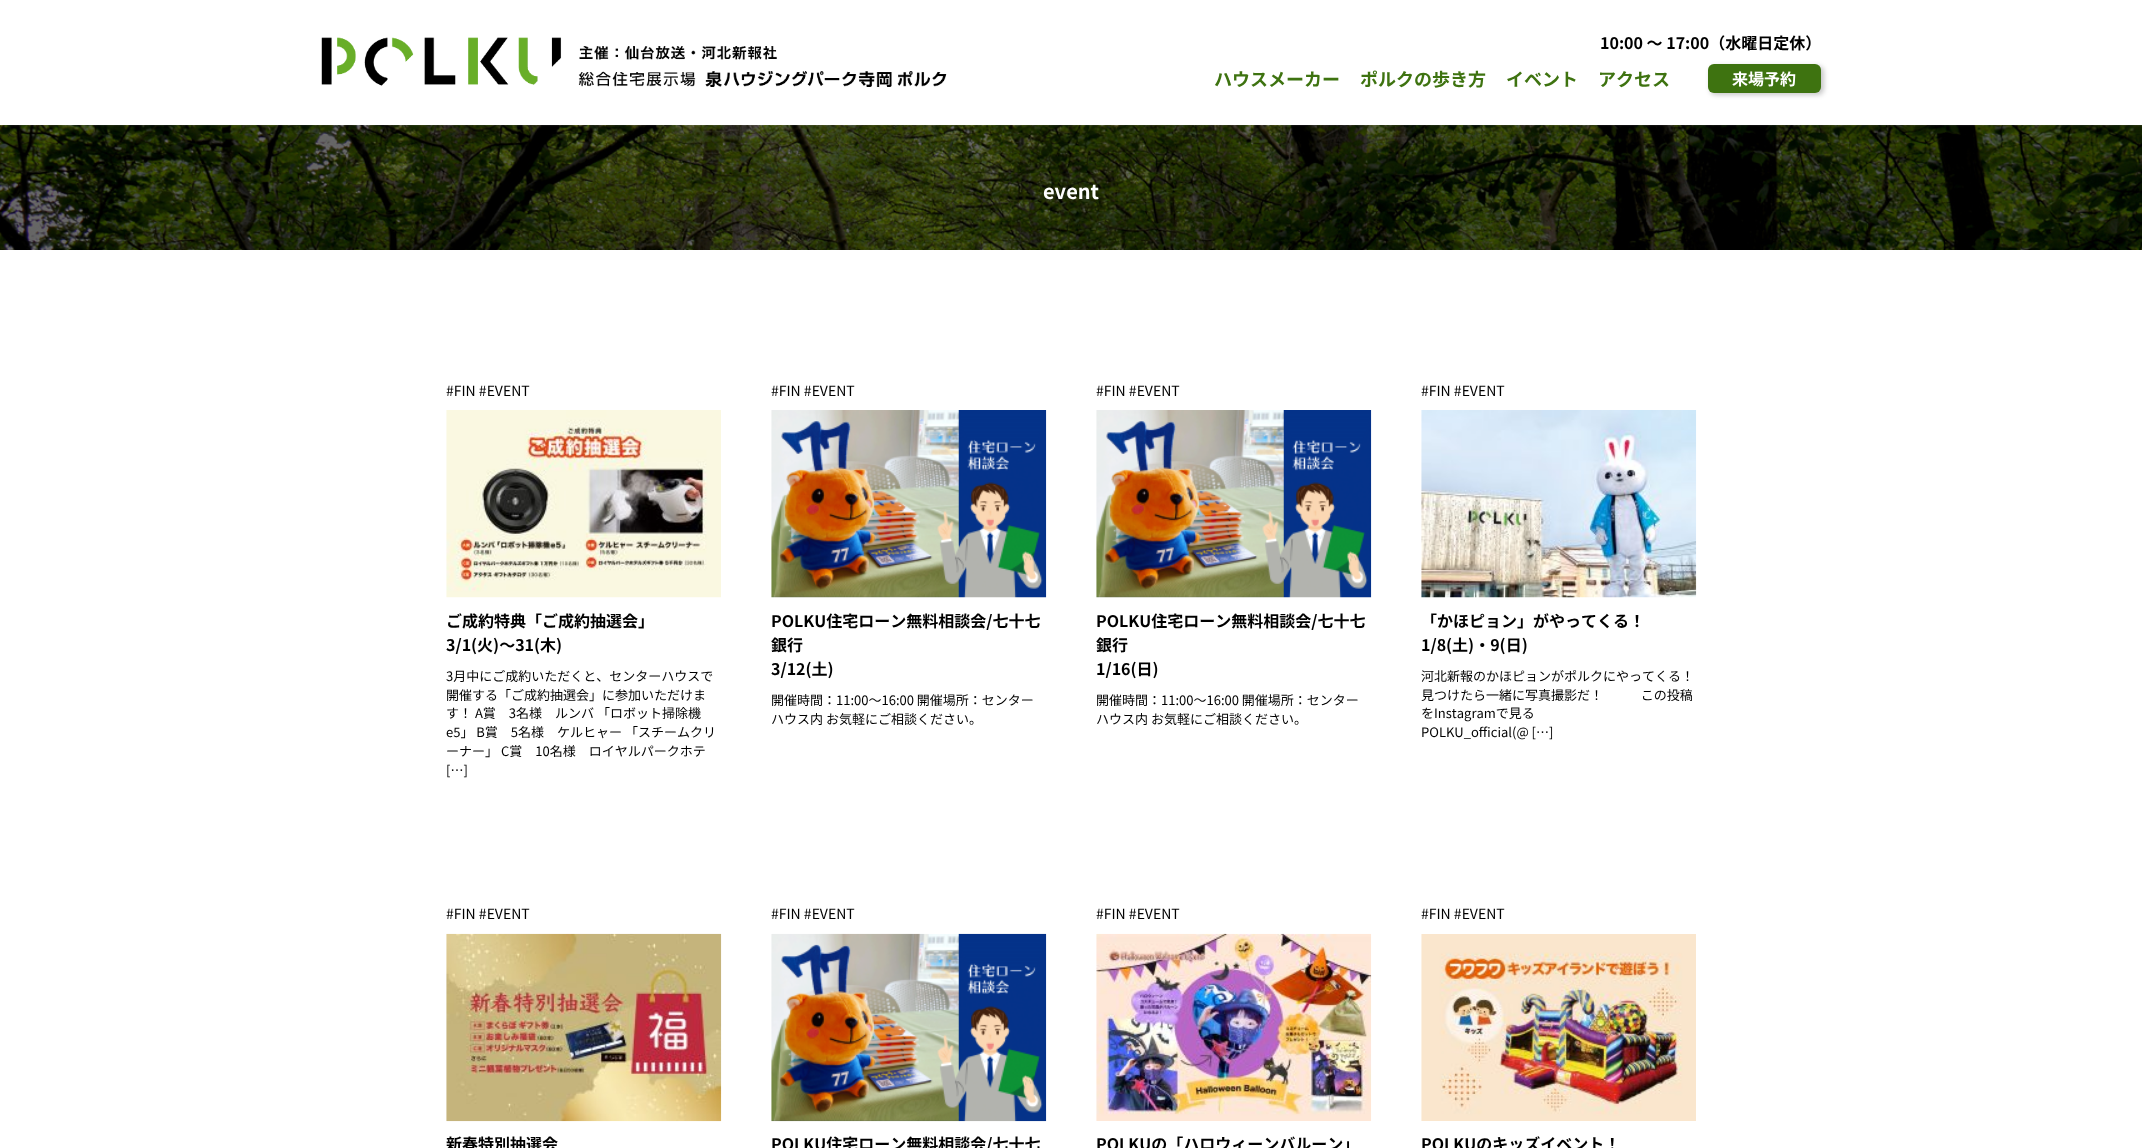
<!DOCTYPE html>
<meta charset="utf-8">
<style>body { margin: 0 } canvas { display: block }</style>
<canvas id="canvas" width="2142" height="1148"></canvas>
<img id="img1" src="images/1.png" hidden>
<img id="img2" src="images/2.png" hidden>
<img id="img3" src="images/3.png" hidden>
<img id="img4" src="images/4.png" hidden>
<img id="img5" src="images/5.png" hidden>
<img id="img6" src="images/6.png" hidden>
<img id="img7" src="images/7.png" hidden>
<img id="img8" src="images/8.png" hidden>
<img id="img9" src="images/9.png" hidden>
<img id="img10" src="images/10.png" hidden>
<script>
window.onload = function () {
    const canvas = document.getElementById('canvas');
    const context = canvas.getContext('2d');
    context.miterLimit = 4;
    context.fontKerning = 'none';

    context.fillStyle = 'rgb(255, 255, 255)';
    context.fillRect(0, 0, 2142, 1148);
    context.drawImage(document.getElementById('img1'), 321, 37, 626, 50);
    context.fillStyle = 'rgba(0, 0, 0, 0.22)';
    context.filter = 'blur(2.5px)';
    context.beginPath();
    context.roundRect(1710, 66, 114, 29, 6);
    context.fill();
    context.filter = 'none';
    context.fillStyle = 'rgb(62, 115, 16)';
    context.beginPath();
    context.roundRect(1708, 64, 113, 29, 6);
    context.fill();
    context.drawImage(document.getElementById('img2'), 0, 125, 2142, 125);
    context.drawImage(document.getElementById('img3'), 446, 410, 275, 188);
    context.drawImage(document.getElementById('img4'), 771, 410, 276, 188);
    context.drawImage(document.getElementById('img5'), 1096, 410, 276, 188);
    context.drawImage(document.getElementById('img6'), 1421, 410, 276, 188);
    context.drawImage(document.getElementById('img7'), 446, 933, 276, 189);
    context.drawImage(document.getElementById('img8'), 771, 933, 276, 189);
    context.drawImage(document.getElementById('img9'), 1096, 933, 276, 188);
    context.drawImage(document.getElementById('img10'), 1421, 934, 275, 187);
    context.font = 'bold 16px Noto Sans JP';
    context.fillStyle = 'rgb(0, 0, 0)';
    context.fillText('10:00 ～ 17:00（水曜日定休）', 1600, 49);
    context.font = 'bold 18px Noto Sans JP';
    context.fillStyle = 'rgb(62, 115, 16)';
    context.fillText('ハウスメーカー', 1214, 86);
    context.fillText('ポルクの歩き方', 1360, 86);
    context.fillText('イベント', 1506, 86);
    context.fillText('アクセス', 1598, 86);
    context.font = 'bold 16px Noto Sans JP';
    context.fillStyle = 'rgb(255, 255, 255)';
    context.fillText('来場予約', 1732, 85);
    context.font = 'bold 20px Noto Sans JP';
    context.fillText('event', 1043, 199);
    context.font = '14px Noto Sans JP';
    context.fillStyle = 'rgb(0, 0, 0)';
    context.fillText('#FIN #EVENT', 446, 396);
    context.font = 'bold 16px Noto Sans JP';
    context.fillText('ご成約特典「ご成約抽選会」', 446, 627);
    context.fillText('3/1(火)〜31(木)', 446, 651);
    context.font = '13px Noto Sans JP';
    context.fillText('3月中にご成約いただくと、センターハウスで', 446, 681);
    context.fillText('開催する「ご成約抽選会」に参加いただけま', 446, 700);
    context.fillText('す！ A賞　3名様　ルンバ 「ロボット掃除機', 446, 718);
    context.fillText('e5」 B賞　5名様　ケルヒャー 「スチームクリ', 446, 737);
    context.fillText('ーナー」 C賞　10名様　ロイヤルパークホテ', 446, 756);
    context.fillText('[…]', 446, 775);
    context.font = '14px Noto Sans JP';
    context.fillText('#FIN #EVENT', 771, 396);
    context.font = 'bold 16px Noto Sans JP';
    context.fillText('POLKU住宅ローン無料相談会/七十七', 771, 627);
    context.fillText('銀行', 771, 651);
    context.fillText('3/12(土)', 771, 675);
    context.font = '13px Noto Sans JP';
    context.fillText('開催時間：11:00〜16:00 開催場所：センター', 771, 705);
    context.fillText('ハウス内 お気軽にご相談ください。', 771, 724);
    context.font = '14px Noto Sans JP';
    context.fillText('#FIN #EVENT', 1096, 396);
    context.font = 'bold 16px Noto Sans JP';
    context.fillText('POLKU住宅ローン無料相談会/七十七', 1096, 627);
    context.fillText('銀行', 1096, 651);
    context.fillText('1/16(日)', 1096, 675);
    context.font = '13px Noto Sans JP';
    context.fillText('開催時間：11:00〜16:00 開催場所：センター', 1096, 705);
    context.fillText('ハウス内 お気軽にご相談ください。', 1096, 724);
    context.font = '14px Noto Sans JP';
    context.fillText('#FIN #EVENT', 1421, 396);
    context.font = 'bold 16px Noto Sans JP';
    context.fillText('「かほピョン」がやってくる！', 1421, 627);
    context.fillText('1/8(土)・9(日)', 1421, 651);
    context.font = '13px Noto Sans JP';
    context.fillText('河北新報のかほピョンがポルクにやってくる！', 1421, 681);
    context.fillText('見つけたら一緒に写真撮影だ！             この投稿', 1421, 700);
    context.fillText('をInstagramで見る', 1421, 718);
    context.fillText('POLKU_official(@ […]', 1421, 737);
    context.font = '14px Noto Sans JP';
    context.fillText('#FIN #EVENT', 446, 919);
    context.font = 'bold 16px Noto Sans JP';
    context.fillText('新春特別抽選会', 446, 1150);
    context.font = '14px Noto Sans JP';
    context.fillText('#FIN #EVENT', 771, 919);
    context.font = 'bold 16px Noto Sans JP';
    context.fillText('POLKU住宅ローン無料相談会/七十七', 771, 1150);
    context.font = '14px Noto Sans JP';
    context.fillText('#FIN #EVENT', 1096, 919);
    context.font = 'bold 16px Noto Sans JP';
    context.fillText('POLKUの「ハロウィーンバルーン」', 1096, 1150);
    context.font = '14px Noto Sans JP';
    context.fillText('#FIN #EVENT', 1421, 919);
    context.font = 'bold 16px Noto Sans JP';
    context.fillText('POLKUのキッズイベント！', 1421, 1150);
};
</script>
